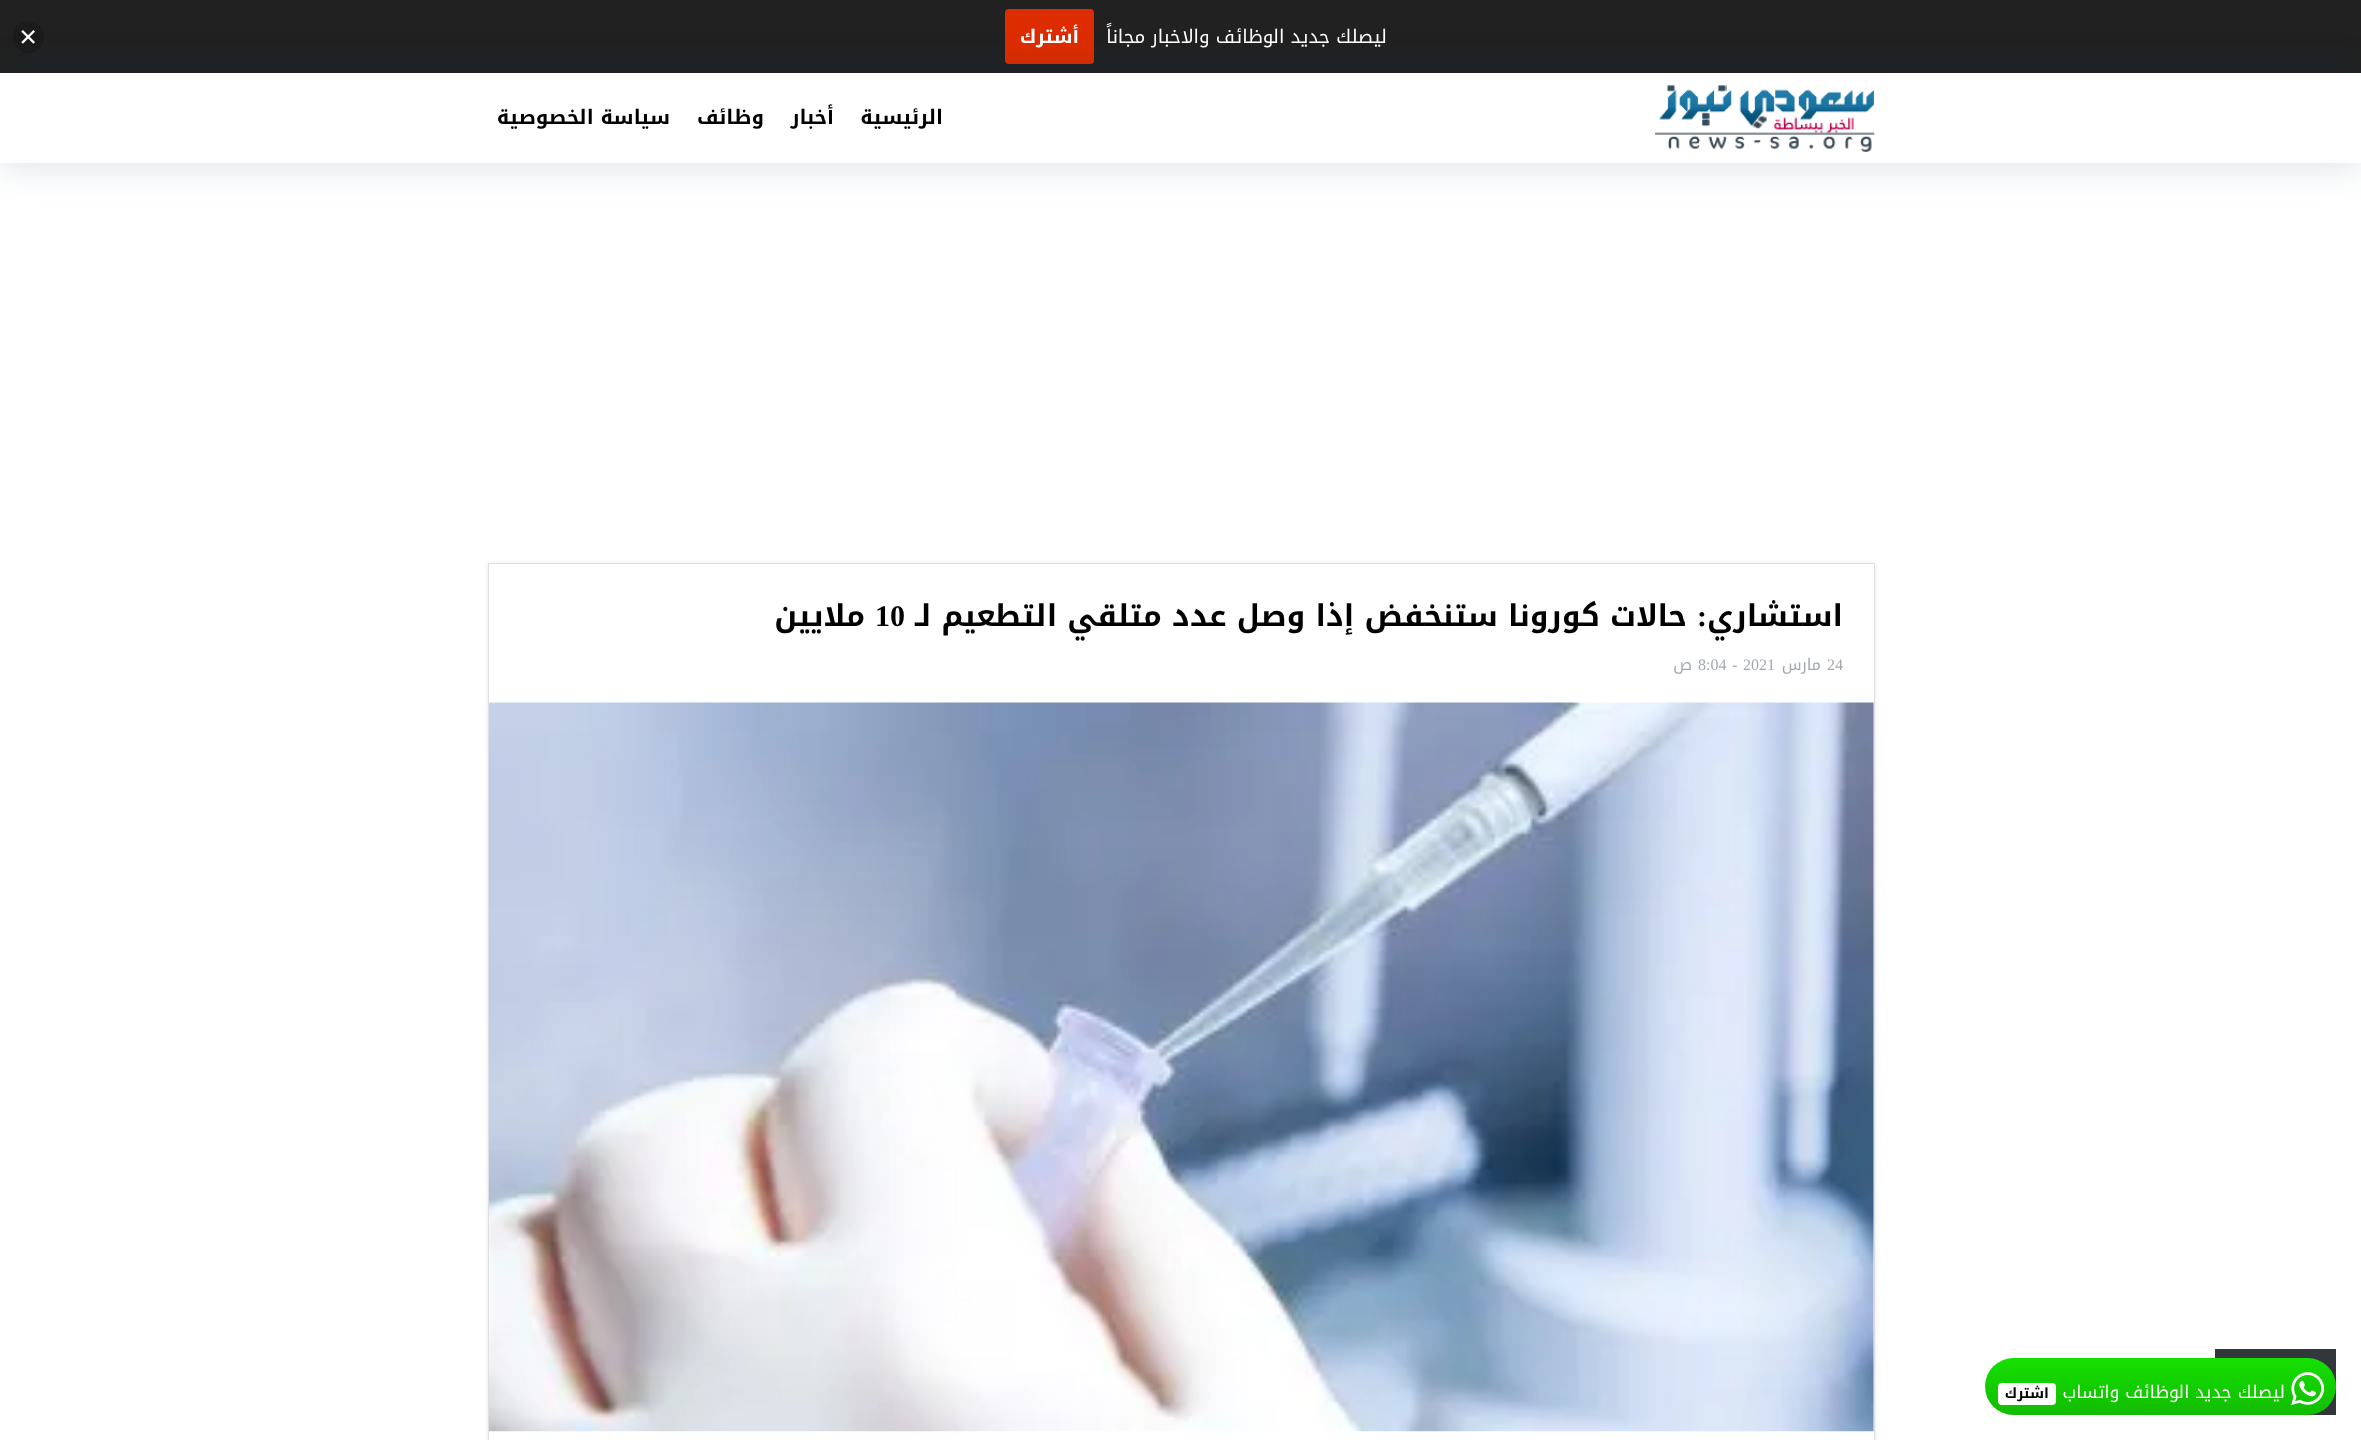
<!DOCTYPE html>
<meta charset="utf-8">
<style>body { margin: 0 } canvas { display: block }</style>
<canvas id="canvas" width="2361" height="1440"></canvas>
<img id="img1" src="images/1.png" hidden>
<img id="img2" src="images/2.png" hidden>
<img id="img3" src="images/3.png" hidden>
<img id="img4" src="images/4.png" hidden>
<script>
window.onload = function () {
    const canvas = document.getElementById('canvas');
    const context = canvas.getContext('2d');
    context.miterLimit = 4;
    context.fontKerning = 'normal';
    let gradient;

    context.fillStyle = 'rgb(255, 255, 255)';
    context.fillRect(0, 0, 2361, 1440);
    context.fillStyle = 'rgb(33, 33, 33)';
    context.fillRect(0, 0, 2361, 73);
    context.fillStyle = 'rgb(221, 44, 0)';
    context.beginPath();
    context.roundRect(1005, 9, 89, 55, 4);
    context.fill();
    context.fillStyle = 'rgb(27, 27, 27)';
    context.beginPath();
    context.roundRect(13, 21, 31, 32, 15.5);
    context.fill();
    context.drawImage(document.getElementById('img1'), 21, 30, 14, 14);
    context.fillStyle = 'rgba(7, 51, 84, 0.17)';
    context.filter = 'blur(19px)';
    context.beginPath();
    context.rect(0, 73, 2361, 90);
    context.fill();
    context.filter = 'none';
    context.fillStyle = 'rgb(255, 255, 255)';
    context.fillRect(0, 73, 2361, 90);
    context.drawImage(document.getElementById('img2'), 1655, 85, 220, 67);
    context.save();
    context.beginPath();
    context.moveTo(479, 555);
    context.lineTo(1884, 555);
    context.lineTo(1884, 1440);
    context.lineTo(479, 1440);
    context.closePath();
    context.moveTo(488, 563);
    context.lineTo(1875, 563);
    context.lineTo(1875, 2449);
    context.lineTo(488, 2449);
    context.closePath();
    context.clip('evenodd');
    context.fillStyle = 'rgba(0, 0, 0, 0.1)';
    context.filter = 'blur(2.5px)';
    context.beginPath();
    context.rect(488, 564, 1387, 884);
    context.fill();
    context.filter = 'none';
    context.restore();
    context.strokeStyle = 'rgb(221, 223, 226)';
    context.strokeRect(488.5, 563.5, 1386, 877);
    context.drawImage(document.getElementById('img3'), 489, 702, 1385, 730);
    context.fillStyle = 'rgb(50, 55, 60)';
    context.fillRect(2215, 1349, 121, 66);
    gradient = context.createLinearGradient(2161, 1358, 2161, 1415);
    gradient.addColorStop(0, 'rgb(21, 224, 0)');
    gradient.addColorStop(1, 'rgb(18, 188, 0)');
    context.fillStyle = gradient;
    context.beginPath();
    context.roundRect(1985, 1358, 351, 57, 28.5);
    context.fill();
    context.drawImage(document.getElementById('img4'), 2291, 1372, 34, 33);
    context.fillStyle = 'rgb(255, 255, 255)';
    context.beginPath();
    context.roundRect(1998, 1383, 58, 22, 4);
    context.fill();
    context.direction = 'rtl';
    context.font = '18.75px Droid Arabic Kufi';
    context.fillText('ليصلك جديد الوظائف والاخبار مجاناً', 1387, 43);
    context.font = 'bold 18.75px Droid Arabic Kufi';
    context.fillText('أشترك', 1079, 43);
    context.font = 'bold 20px Droid Arabic Kufi';
    context.fillStyle = 'rgb(0, 0, 0)';
    context.fillText('الرئيسية', 943, 124);
    context.fillText('أخبار', 834, 124);
    context.fillText('وظائف', 764, 124);
    context.fillText('سياسة الخصوصية', 670, 124);
    context.font = 'bold 30px Droid Arabic Kufi';
    context.fillText('استشاري', 1843, 626);
    context.font = 'bold 30px Liberation Serif';
    context.fillText(':', 1707, 626);
    context.font = 'bold 30px Droid Arabic Kufi';
    context.fillText('حالات كورونا ستنخفض إذا وصل عدد متلقي التطعيم لـ', 1687, 626);
    context.direction = 'ltr';
    context.font = 'bold 30px Liberation Serif';
    context.fillText('10', 875, 626);
    context.direction = 'rtl';
    context.font = 'bold 30px Droid Arabic Kufi';
    context.fillText('ملايين', 865, 626);
    context.direction = 'ltr';
    context.font = '16px Liberation Serif';
    context.fillStyle = 'rgb(162, 169, 174)';
    context.fillText('24', 1827, 670);
    context.direction = 'rtl';
    context.font = '16px Droid Arabic Kufi';
    context.fillText('مارس', 1821, 670);
    context.direction = 'ltr';
    context.font = '16px Liberation Serif';
    context.fillText('2021', 1743, 670);
    context.fillText('-', 1732, 670);
    context.fillText('8:04', 1698, 670);
    context.direction = 'rtl';
    context.font = '16px Droid Arabic Kufi';
    context.fillText('ص', 1692, 670);
    context.font = '17.5px Droid Arabic Kufi';
    context.fillStyle = 'rgb(255, 255, 255)';
    context.fillText('ليصلك جديد الوظائف واتساب', 2285, 1398);
    context.font = 'bold 14px Droid Arabic Kufi';
    context.fillStyle = 'rgb(0, 0, 0)';
    context.fillText('اشترك', 2049, 1398);
};
</script>
